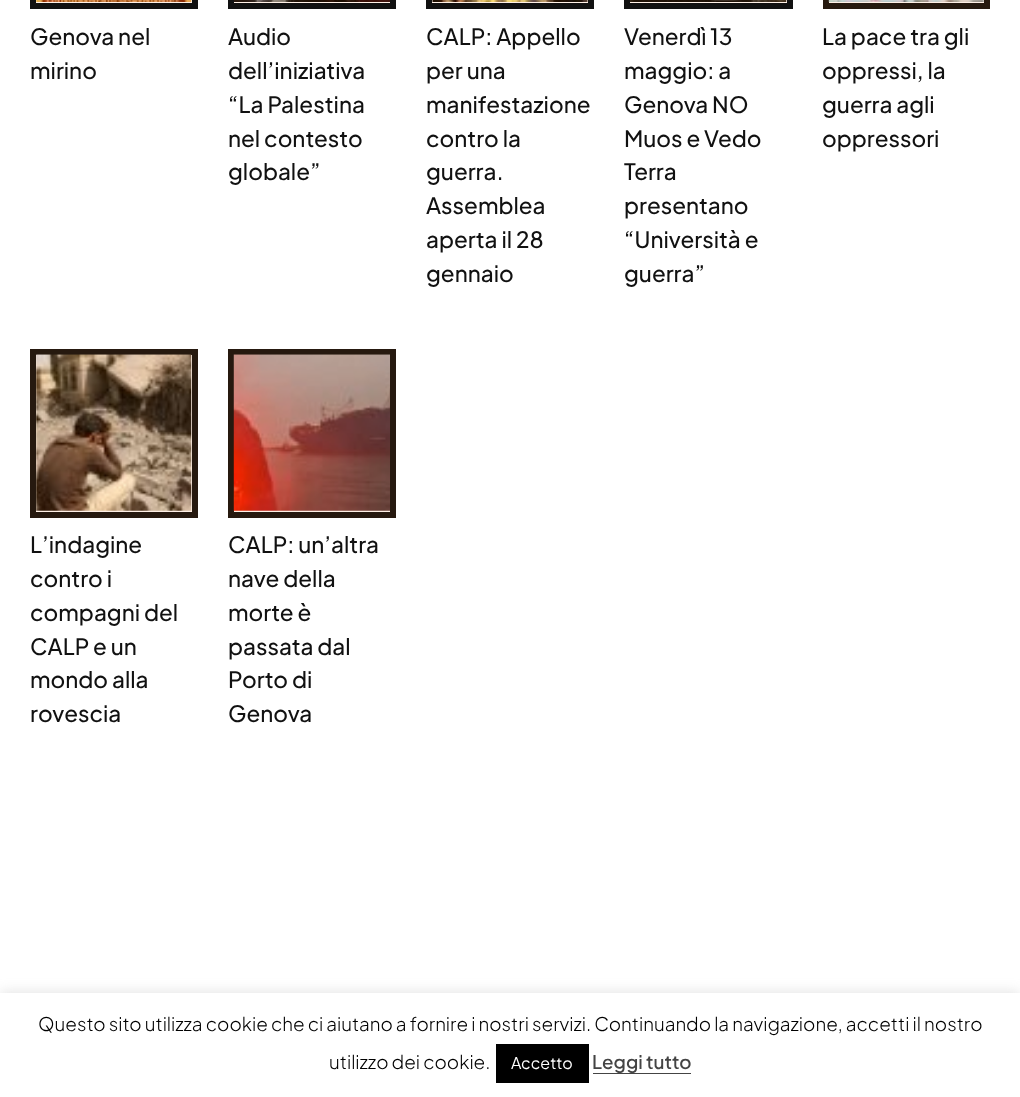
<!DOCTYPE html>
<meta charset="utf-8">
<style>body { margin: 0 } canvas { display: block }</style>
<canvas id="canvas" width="1020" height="1097"></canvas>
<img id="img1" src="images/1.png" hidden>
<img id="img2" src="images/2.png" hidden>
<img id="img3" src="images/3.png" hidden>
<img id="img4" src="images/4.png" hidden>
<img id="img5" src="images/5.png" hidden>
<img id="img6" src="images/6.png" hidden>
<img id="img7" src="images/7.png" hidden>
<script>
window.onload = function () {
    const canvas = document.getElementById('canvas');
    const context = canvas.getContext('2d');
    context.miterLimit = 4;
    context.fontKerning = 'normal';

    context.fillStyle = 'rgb(255, 255, 255)';
    context.fillRect(0, 0, 1020, 1097);
    context.fillStyle = 'rgb(255, 240, 230)';
    context.fillRect(234, 510, 156, 2);
    context.fillRect(630, 0, 157, 3);
    context.fillRect(432, 0, 156, 3);
    context.fillRect(234, 2, 156, 1);
    context.fillRect(36, 0, 156, 3);
    context.drawImage(document.getElementById('img1'), 36, 0, 156, 2);
    context.strokeStyle = 'rgb(17, 17, 17)';
    context.lineWidth = 6;
    context.strokeRect(33, -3, 162, 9);
    context.drawImage(document.getElementById('img2'), 234, 0, 156, 2);
    context.strokeRect(231, -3, 162, 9);
    context.drawImage(document.getElementById('img3'), 432, 0, 156, 2);
    context.strokeRect(429, -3, 162, 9);
    context.drawImage(document.getElementById('img4'), 630, 0, 157, 2);
    context.strokeRect(627, -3, 163, 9);
    context.beginPath();
    context.rect(826, -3, 161, 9);
    context.fill();
    context.strokeStyle = 'rgb(41, 26, 15)';
    context.stroke();
    context.drawImage(document.getElementById('img5'), 828, 0, 156, 2);
    context.strokeStyle = 'rgba(17, 17, 17, 0.1)';
    context.strokeRect(826, -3, 161, 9);
    context.beginPath();
    context.rect(33, 352, 162, 163);
    context.fill();
    context.strokeStyle = 'rgb(41, 26, 15)';
    context.stroke();
    context.drawImage(document.getElementById('img6'), 36, 354, 156, 157);
    context.strokeStyle = 'rgba(17, 17, 17, 0.1)';
    context.strokeRect(33, 352, 162, 163);
    context.strokeStyle = 'rgb(41, 26, 15)';
    context.strokeRect(231, 352, 162, 163);
    context.drawImage(document.getElementById('img7'), 233, 354, 157, 157);
    context.strokeStyle = 'rgba(17, 17, 17, 0.1)';
    context.strokeRect(231, 352, 162, 163);
    context.fillStyle = 'rgba(172, 171, 171, 0.3)';
    context.filter = 'blur(6px)';
    context.beginPath();
    context.rect(0, 991, 1020, 105);
    context.fill();
    context.filter = 'none';
    context.fillStyle = 'rgb(255, 255, 255)';
    context.fillRect(0, 993, 1020, 104);
    context.fillStyle = 'rgb(0, 0, 0)';
    context.fillRect(496, 1044, 93, 39);
    context.fillStyle = 'rgb(68, 68, 68)';
    context.fillRect(593, 1073, 98, 1);
    context.font = '500 22.5px Plus Jakarta Sans';
    context.fillStyle = 'rgb(17, 17, 17)';
    context.fillText('Genova nel', 30, 45);
    context.fillText('mirino', 30, 79);
    context.fillText('Audio', 228, 45);
    context.fillText('dell’iniziativa', 228, 79);
    context.fillText('“La Palestina', 228, 113);
    context.fillText('nel contesto', 228, 147);
    context.fillText('globale”', 228, 180);
    context.fillText('CALP: Appello', 426, 45);
    context.fillText('per una', 426, 79);
    context.fillText('manifestazione', 426, 113);
    context.fillText('contro la', 426, 147);
    context.fillText('guerra.', 426, 180);
    context.fillText('Assemblea', 426, 214);
    context.fillText('aperta il 28', 426, 248);
    context.fillText('gennaio', 426, 282);
    context.fillText('Venerdì 13', 624, 45);
    context.fillText('maggio: a', 624, 79);
    context.fillText('Genova NO', 624, 113);
    context.fillText('Muos e Vedo', 624, 147);
    context.fillText('Terra', 624, 180);
    context.fillText('presentano', 624, 214);
    context.fillText('“Università e', 624, 248);
    context.fillText('guerra”', 624, 282);
    context.fillText('La pace tra gli', 822, 45);
    context.fillText('oppressi, la', 822, 79);
    context.fillText('guerra agli', 822, 113);
    context.fillText('oppressori', 822, 147);
    context.fillText('L’indagine', 30, 553);
    context.fillText('contro i', 30, 587);
    context.fillText('compagni del', 30, 621);
    context.fillText('CALP e un', 30, 655);
    context.fillText('mondo alla', 30, 688);
    context.fillText('rovescia', 30, 722);
    context.fillText('CALP: un’altra', 228, 553);
    context.fillText('nave della', 228, 587);
    context.fillText('morte è', 228, 621);
    context.fillText('passata dal', 228, 655);
    context.fillText('Porto di', 228, 688);
    context.fillText('Genova', 228, 722);
    context.font = '300 18.75px Plus Jakarta Sans';
    context.fillStyle = 'rgb(0, 0, 0)';
    context.fillText('Questo sito utilizza cookie che ci aiutano a fornire i nostri servizi. Continuando la navigazione, accetti il nostro', 38, 1031);
    context.fillText('utilizzo dei cookie.', 329, 1069);
    context.font = '16px Plus Jakarta Sans';
    context.fillStyle = 'rgb(255, 255, 255)';
    context.fillText('Accetto', 511, 1069);
    context.font = '500 18.75px "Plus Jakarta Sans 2"';
    context.fillStyle = 'rgb(68, 68, 68)';
    context.fillText('Leggi tutto', 592, 1069);
};
</script>
